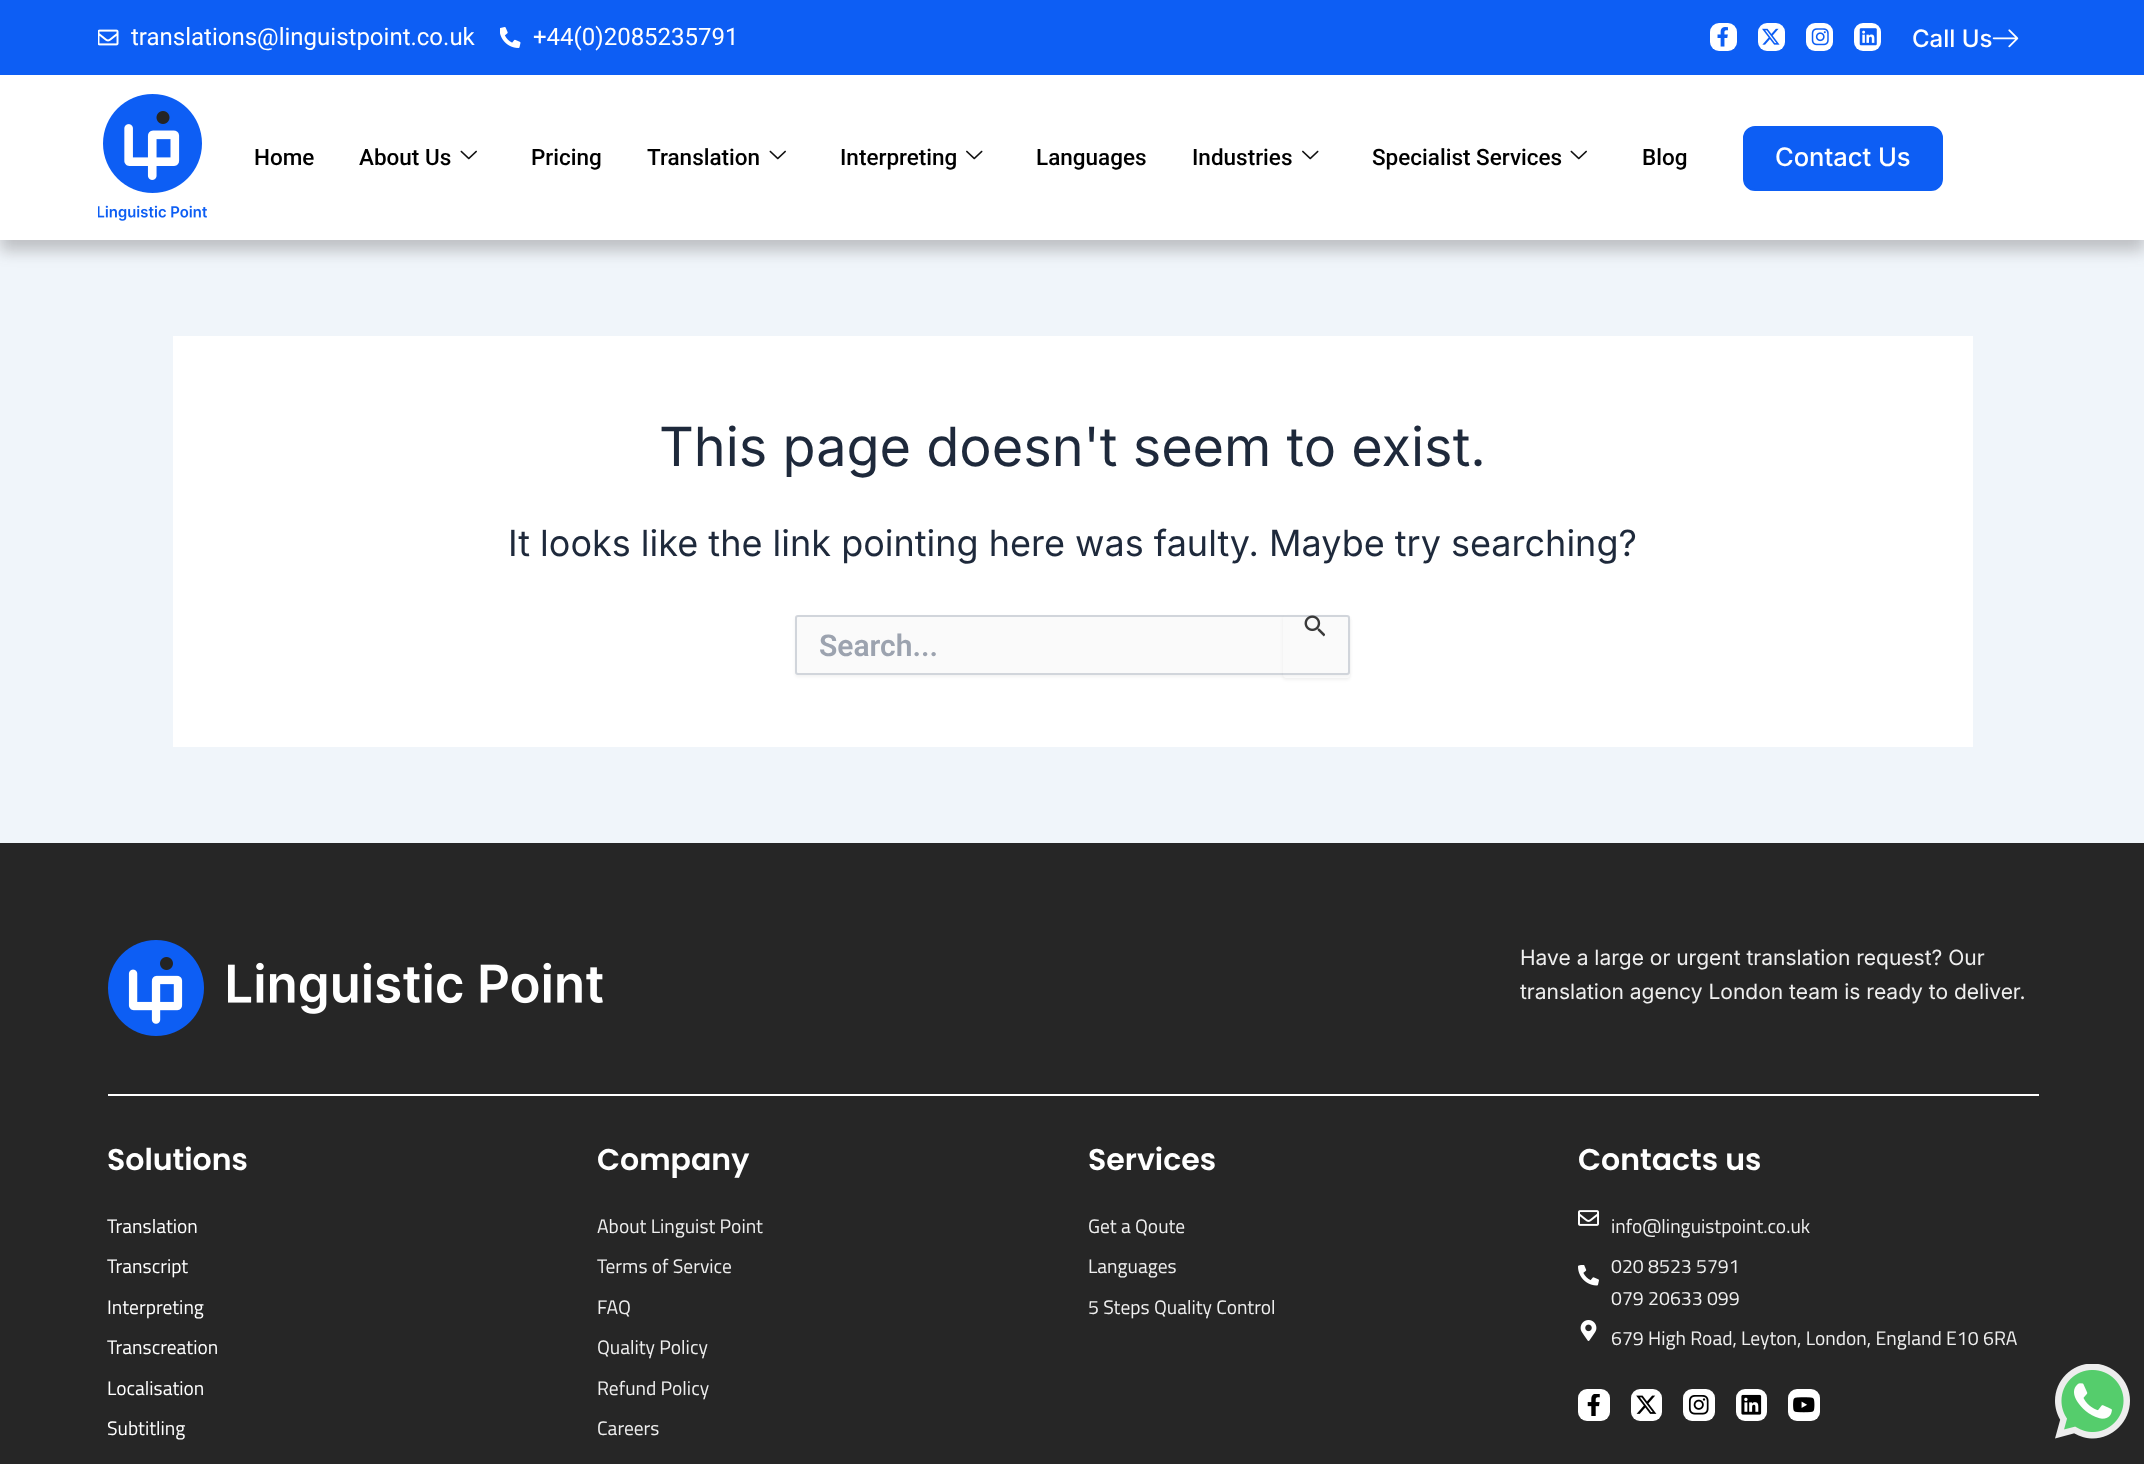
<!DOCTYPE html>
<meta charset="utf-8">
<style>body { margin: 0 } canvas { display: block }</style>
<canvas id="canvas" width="2144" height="1464"></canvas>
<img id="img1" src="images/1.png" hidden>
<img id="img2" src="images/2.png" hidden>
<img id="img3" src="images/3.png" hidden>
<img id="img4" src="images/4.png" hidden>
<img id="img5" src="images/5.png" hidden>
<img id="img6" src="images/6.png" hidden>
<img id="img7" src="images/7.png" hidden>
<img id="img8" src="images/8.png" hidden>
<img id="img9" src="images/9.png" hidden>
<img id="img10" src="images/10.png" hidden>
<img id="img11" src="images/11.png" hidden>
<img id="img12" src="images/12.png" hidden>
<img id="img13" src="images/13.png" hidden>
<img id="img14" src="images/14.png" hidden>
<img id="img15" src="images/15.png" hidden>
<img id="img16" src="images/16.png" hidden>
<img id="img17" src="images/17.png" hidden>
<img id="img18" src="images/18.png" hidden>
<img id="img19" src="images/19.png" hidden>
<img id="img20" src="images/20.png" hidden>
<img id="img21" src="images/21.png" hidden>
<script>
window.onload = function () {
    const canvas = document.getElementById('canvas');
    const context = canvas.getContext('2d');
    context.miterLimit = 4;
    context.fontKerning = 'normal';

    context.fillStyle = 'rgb(240, 245, 250)';
    context.fillRect(0, 0, 2144, 1464);
    context.fillStyle = 'rgba(68, 67, 67, 0.29)';
    context.filter = 'blur(7.5px)';
    context.beginPath();
    context.rect(0, 86, 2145, 165);
    context.fill();
    context.filter = 'none';
    context.fillStyle = 'rgb(13, 94, 244)';
    context.fillRect(0, 0, 2144, 75);
    context.drawImage(document.getElementById('img1'), 98, 29, 21, 17);
    context.drawImage(document.getElementById('img2'), 500, 27, 21, 21);
    context.fillStyle = 'rgb(255, 255, 255)';
    context.beginPath();
    context.roundRect(1710, 23, 27, 28, 9);
    context.fill();
    context.drawImage(document.getElementById('img3'), 1717, 27, 11, 20);
    context.beginPath();
    context.roundRect(1758, 23, 27, 28, 9);
    context.fill();
    context.drawImage(document.getElementById('img4'), 1762, 28, 18, 17);
    context.beginPath();
    context.roundRect(1806, 23, 27, 28, 9);
    context.fill();
    context.drawImage(document.getElementById('img5'), 1811, 28, 18, 18);
    context.beginPath();
    context.roundRect(1854, 23, 27, 28, 9);
    context.fill();
    context.drawImage(document.getElementById('img6'), 1859, 28, 18, 18);
    context.drawImage(document.getElementById('img7'), 1992, 29, 27, 19);
    context.fillRect(0, 75, 2144, 165);
    context.drawImage(document.getElementById('img8'), 98, 94, 109, 127);
    context.drawImage(document.getElementById('img9'), 460, 150, 17, 10);
    context.drawImage(document.getElementById('img9'), 769, 150, 17, 10);
    context.drawImage(document.getElementById('img10'), 966, 150, 17, 10);
    context.drawImage(document.getElementById('img10'), 1302, 150, 17, 10);
    context.drawImage(document.getElementById('img9'), 1570, 150, 17, 10);
    context.fillStyle = 'rgb(13, 94, 244)';
    context.beginPath();
    context.roundRect(1744, 127, 198, 63, 11);
    context.fill();
    context.strokeStyle = 'rgb(13, 94, 244)';
    context.lineWidth = 2;
    context.stroke();
    context.fillStyle = 'rgb(38, 38, 38)';
    context.fillRect(0, 843, 2144, 621);
    context.drawImage(document.getElementById('img11'), 2055, 1364, 75, 75);
    context.fillStyle = 'rgb(255, 255, 255)';
    context.fillRect(173, 336, 1800, 411);
    context.fillStyle = 'rgba(0, 0, 0, 0.05)';
    context.filter = 'blur(1.5px)';
    context.beginPath();
    context.roundRect(795, 617, 555, 60, 3);
    context.fill();
    context.filter = 'none';
    context.fillStyle = 'rgb(250, 250, 250)';
    context.beginPath();
    context.roundRect(796, 616, 553, 58, 2);
    context.fill();
    context.strokeStyle = 'rgb(209, 213, 219)';
    context.stroke();
    context.drawImage(document.getElementById('img12'), 1304, 615, 21, 22);
    context.save();
    context.beginPath();
    context.moveTo(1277, 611);
    context.lineTo(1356, 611);
    context.lineTo(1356, 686);
    context.lineTo(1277, 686);
    context.closePath();
    context.moveTo(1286, 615);
    context.lineTo(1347, 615);
    context.bezierCurveTo(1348.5, 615, 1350, 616.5, 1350, 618);
    context.lineTo(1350, 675);
    context.bezierCurveTo(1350, 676.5, 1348.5, 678, 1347, 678);
    context.lineTo(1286, 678);
    context.bezierCurveTo(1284.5, 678, 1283, 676.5, 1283, 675);
    context.lineTo(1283, 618);
    context.bezierCurveTo(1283, 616.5, 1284.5, 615, 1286, 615);
    context.closePath();
    context.clip('evenodd');
    context.fillStyle = 'rgba(0, 0, 0, 0.05)';
    context.filter = 'blur(1.5px)';
    context.beginPath();
    context.roundRect(1283, 617, 67, 63, 3);
    context.fill();
    context.filter = 'none';
    context.restore();
    context.drawImage(document.getElementById('img13'), 108, 940, 495, 96);
    context.fillStyle = 'rgb(255, 255, 255)';
    context.fillRect(108, 1094, 1931, 2);
    context.drawImage(document.getElementById('img14'), 1578, 1210, 21, 16);
    context.drawImage(document.getElementById('img15'), 1578, 1265, 21, 21);
    context.drawImage(document.getElementById('img16'), 1580, 1320, 17, 21);
    context.beginPath();
    context.roundRect(1578, 1389, 32, 32, 9);
    context.fill();
    context.drawImage(document.getElementById('img17'), 1587, 1394, 13, 22);
    context.beginPath();
    context.roundRect(1631, 1389, 31, 32, 9);
    context.fill();
    context.drawImage(document.getElementById('img18'), 1636, 1395, 21, 19);
    context.beginPath();
    context.roundRect(1683, 1389, 32, 32, 9);
    context.fill();
    context.drawImage(document.getElementById('img19'), 1688, 1395, 21, 20);
    context.beginPath();
    context.roundRect(1736, 1389, 31, 32, 9);
    context.fill();
    context.drawImage(document.getElementById('img20'), 1741, 1394, 21, 21);
    context.beginPath();
    context.roundRect(1788, 1389, 32, 32, 9);
    context.fill();
    context.drawImage(document.getElementById('img21'), 1793, 1397, 22, 16);
    context.font = '24px Roboto';
    context.fillText('translations@linguistpoint.co.uk', 131, 45);
    context.fillText('+44(0)2085235791', 533, 45);
    context.font = '500 24px Inter';
    context.fillText('Call Us', 1912, 47);
    context.font = '500 22.5px Roboto';
    context.fillStyle = 'rgb(0, 0, 0)';
    context.fillText('Home', 254, 165);
    context.fillText('About Us', 359, 165);
    context.fillText('Pricing', 531, 165);
    context.fillText('Translation', 647, 165);
    context.fillText('Interpreting', 840, 165);
    context.fillText('Languages', 1036, 165);
    context.fillText('Industries', 1192, 165);
    context.fillText('Specialist Services', 1372, 165);
    context.fillText('Blog', 1642, 165);
    context.font = '500 25.5px Inter';
    context.fillStyle = 'rgb(255, 255, 255)';
    context.fillText('Contact Us', 1775, 166);
    context.font = '54px Inter';
    context.fillStyle = 'rgb(30, 41, 59)';
    context.fillText('This page doesn\'t seem to exist.', 659, 466);
    context.font = '36px Inter';
    context.fillText('It looks like the link pointing here was faulty. Maybe try searching?', 508, 556);
    context.font = '600 30px Roboto';
    context.fillStyle = 'rgb(156, 163, 175)';
    context.fillText('Search...', 819, 656);
    context.font = '21px Inter';
    context.fillStyle = 'rgb(239, 239, 239)';
    context.fillText('Have a large or urgent translation request? Our', 1520, 965);
    context.fillText('translation agency London team is ready to deliver.', 1520, 999);
    context.font = '600 30px Poppins';
    context.fillStyle = 'rgb(255, 255, 255)';
    context.fillText('Solutions', 107, 1170);
    context.font = '19.5px Titillium Web';
    context.fillText('Translation', 107, 1233);
    context.fillText('Transcript', 107, 1273);
    context.fillText('Interpreting', 107, 1314);
    context.fillText('Transcreation', 107, 1354);
    context.fillText('Localisation', 107, 1395);
    context.fillText('Subtitling', 107, 1435);
    context.font = '600 30px Poppins';
    context.fillText('Company', 597, 1170);
    context.font = '19.5px Titillium Web';
    context.fillStyle = 'rgb(239, 239, 239)';
    context.fillText('About Linguist Point', 597, 1233);
    context.fillText('Terms of Service', 597, 1273);
    context.fillText('FAQ', 597, 1314);
    context.fillText('Quality Policy', 597, 1354);
    context.fillText('Refund Policy', 597, 1395);
    context.fillText('Careers', 597, 1435);
    context.font = '600 30px Poppins';
    context.fillStyle = 'rgb(255, 255, 255)';
    context.fillText('Services', 1088, 1170);
    context.font = '19.5px Titillium Web';
    context.fillStyle = 'rgb(239, 239, 239)';
    context.fillText('Get a Qoute', 1088, 1233);
    context.fillText('Languages', 1088, 1273);
    context.fillText('5 Steps Quality Control', 1088, 1314);
    context.font = '600 30px Poppins';
    context.fillStyle = 'rgb(255, 255, 255)';
    context.fillText('Contacts us', 1578, 1170);
    context.font = '19.5px Titillium Web';
    context.fillStyle = 'rgb(239, 239, 239)';
    context.fillText('info@linguistpoint.co.uk', 1611, 1233);
    context.fillText('020 8523 5791', 1611, 1273);
    context.fillText('079 20633 099', 1611, 1305);
    context.fillText('679 High Road, Leyton, London, England E10 6RA', 1611, 1345);
};
</script>
